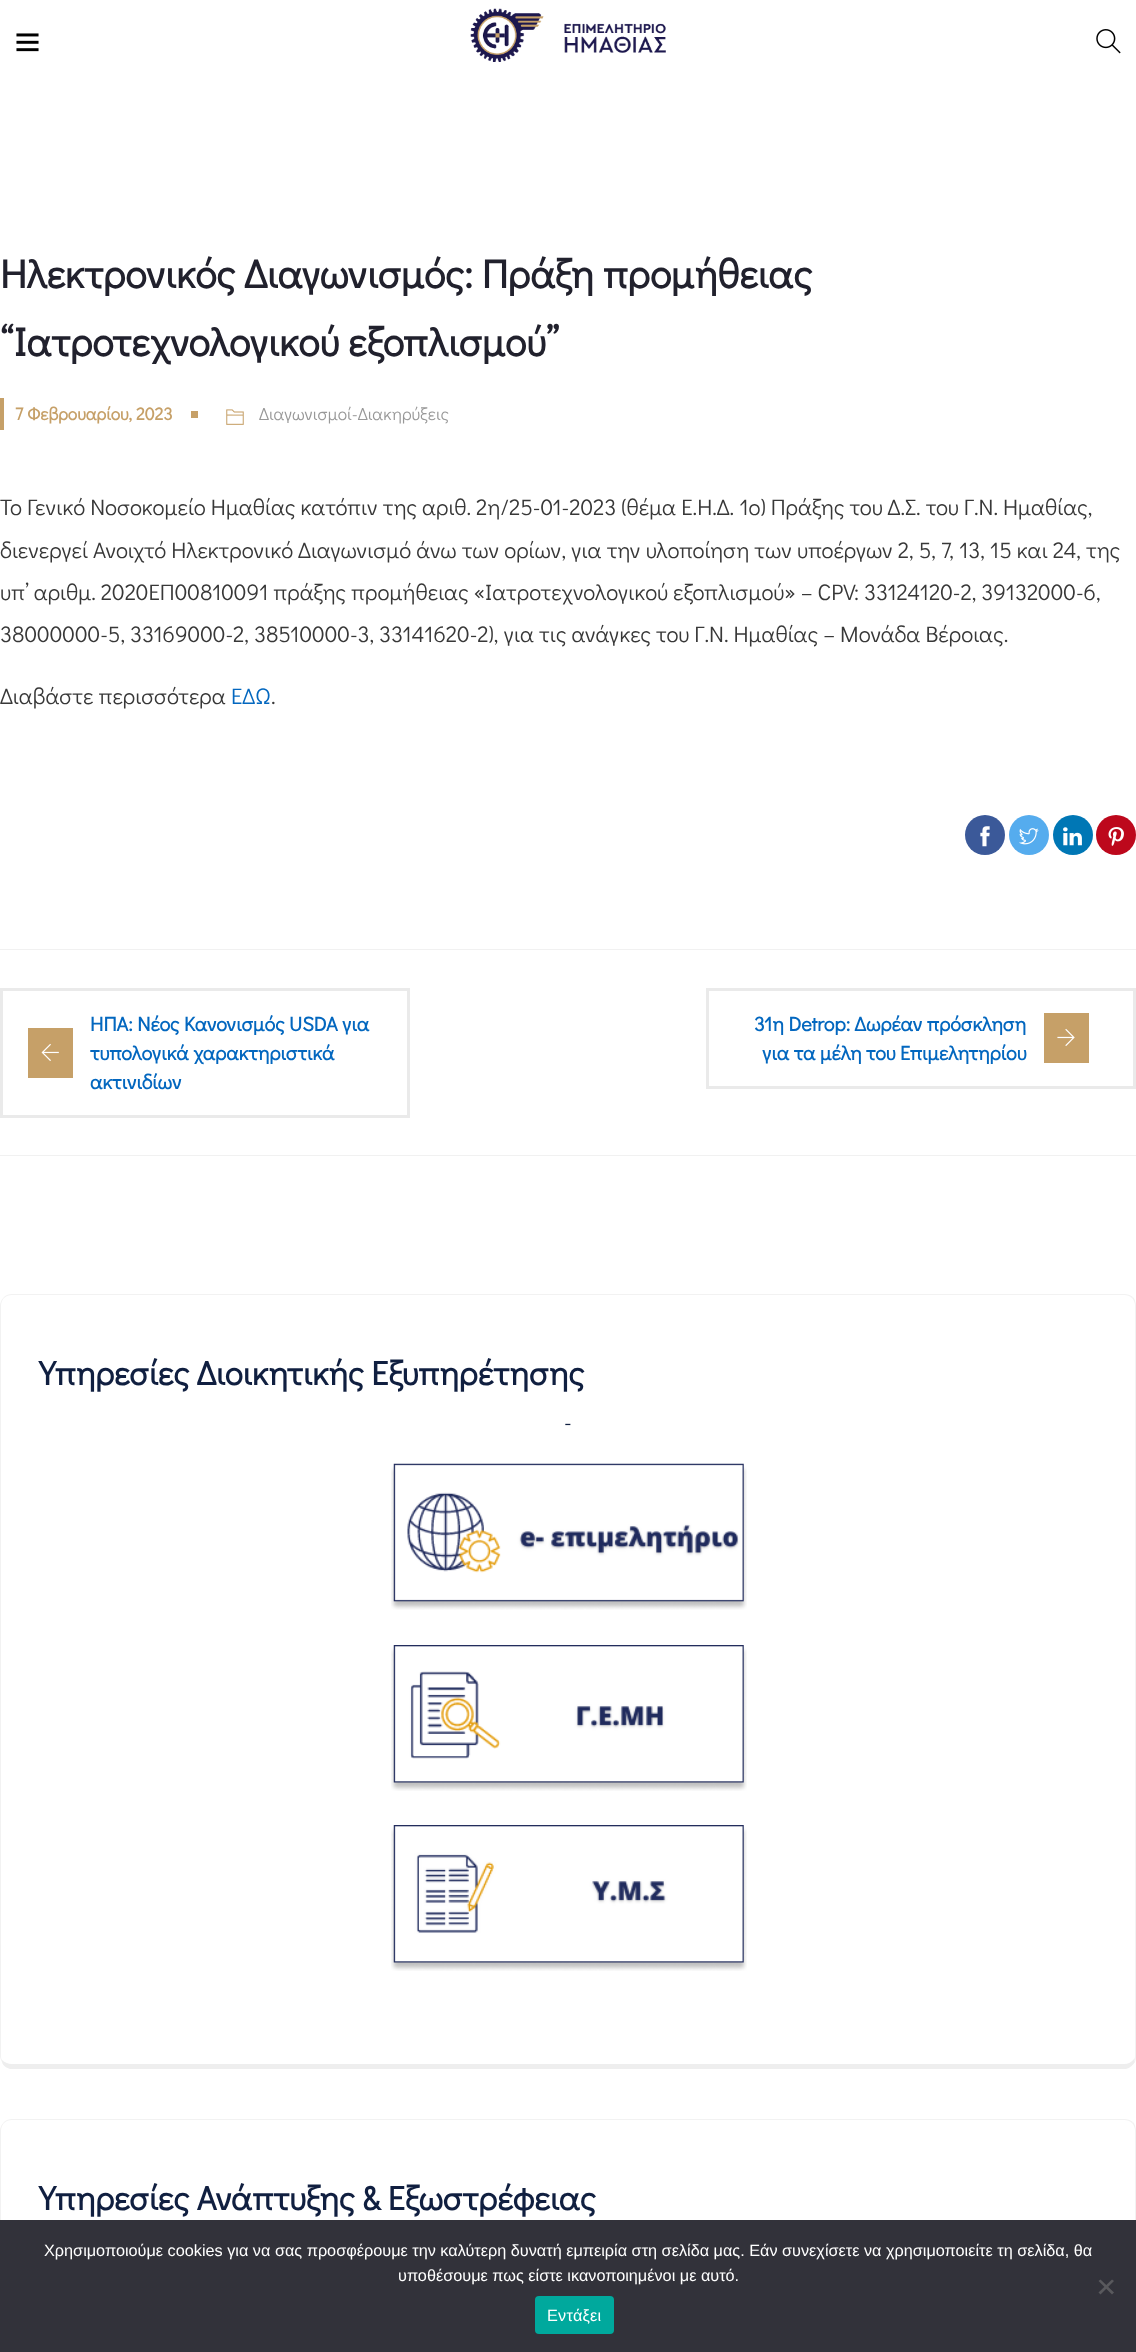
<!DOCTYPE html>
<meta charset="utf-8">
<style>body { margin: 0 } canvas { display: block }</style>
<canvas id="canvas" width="1136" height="2352"></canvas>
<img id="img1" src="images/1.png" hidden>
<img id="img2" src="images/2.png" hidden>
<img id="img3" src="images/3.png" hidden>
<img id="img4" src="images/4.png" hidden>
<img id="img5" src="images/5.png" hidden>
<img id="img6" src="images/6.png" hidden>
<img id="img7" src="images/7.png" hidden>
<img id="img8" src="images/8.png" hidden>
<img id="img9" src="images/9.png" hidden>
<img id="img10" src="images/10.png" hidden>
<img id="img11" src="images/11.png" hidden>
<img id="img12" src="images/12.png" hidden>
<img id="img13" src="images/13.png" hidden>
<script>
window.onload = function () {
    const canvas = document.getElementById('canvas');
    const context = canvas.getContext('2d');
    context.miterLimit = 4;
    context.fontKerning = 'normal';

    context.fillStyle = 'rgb(255, 255, 255)';
    context.fillRect(0, 0, 1136, 2352);
    context.drawImage(document.getElementById('img1'), 16, 33, 23, 19);
    context.drawImage(document.getElementById('img2'), 470, 8, 196, 54);
    context.drawImage(document.getElementById('img3'), 1096, 29, 25, 25);
    context.fillStyle = 'rgb(198, 160, 104)';
    context.fillRect(0, 398, 4, 32);
    context.fillRect(191, 411, 7, 7);
    context.drawImage(document.getElementById('img4'), 226, 409, 18, 16);
    context.fillStyle = 'rgb(59, 89, 153)';
    context.beginPath();
    context.arc(985, 835, 20, 0, 2 * Math.PI);
    context.fill();
    context.drawImage(document.getElementById('img5'), 980, 826, 10, 21);
    context.fillStyle = 'rgb(85, 172, 238)';
    context.beginPath();
    context.arc(1029, 835, 20, 0, 2 * Math.PI);
    context.fill();
    context.drawImage(document.getElementById('img6'), 1019, 828, 20, 17);
    context.fillStyle = 'rgb(0, 119, 181)';
    context.beginPath();
    context.arc(1073, 835, 20, 0, 2 * Math.PI);
    context.fill();
    context.drawImage(document.getElementById('img7'), 1063, 827, 19, 19);
    context.fillStyle = 'rgb(189, 8, 28)';
    context.beginPath();
    context.arc(1116, 835, 20, 0, 2 * Math.PI);
    context.fill();
    context.drawImage(document.getElementById('img8'), 1108, 827, 16, 19);
    context.fillStyle = 'rgb(241, 241, 241)';
    context.fillRect(0, 949, 1136, 1);
    context.fillRect(0, 1155, 1136, 1);
    context.strokeStyle = 'rgb(234, 234, 234)';
    context.lineWidth = 3;
    context.strokeRect(1.5, 989.5, 407, 127);
    context.fillStyle = 'rgb(198, 160, 104)';
    context.fillRect(28, 1028, 45, 50);
    context.drawImage(document.getElementById('img9'), 41, 1043, 18, 18);
    context.strokeRect(707.5, 989.5, 427, 98);
    context.fillRect(1044, 1013, 45, 50);
    context.drawImage(document.getElementById('img10'), 1057, 1028, 18, 18);
    context.fillStyle = 'rgb(242, 242, 242)';
    context.beginPath();
    context.moveTo(12, 1294);
    context.bezierCurveTo(9, 1294, 6, 1295, 4, 1297);
    context.lineTo(4, 1298);
    context.bezierCurveTo(6, 1296, 9, 1295, 12, 1295);
    context.lineTo(1124, 1295);
    context.bezierCurveTo(1127, 1295, 1130, 1296, 1132, 1298);
    context.lineTo(1133, 1297);
    context.bezierCurveTo(1130, 1295, 1128, 1294, 1124, 1294);
    context.closePath();
    context.fill();
    context.beginPath();
    context.moveTo(1135, 2062);
    context.bezierCurveTo(1136, 2060, 1136, 2058, 1136, 2056);
    context.lineTo(1136, 1306);
    context.bezierCurveTo(1136, 1302, 1135, 1300, 1133, 1297);
    context.lineTo(1132, 1298);
    context.bezierCurveTo(1134, 1300, 1135, 1303, 1135, 1306);
    context.lineTo(1135, 2056);
    context.bezierCurveTo(1135, 2057, 1135, 2058, 1134, 2059);
    context.closePath();
    context.fill();
    context.fillStyle = 'rgb(238, 238, 238)';
    context.beginPath();
    context.moveTo(10, 2069);
    context.bezierCurveTo(7, 2068, 3, 2066, 2, 2062);
    context.lineTo(2, 2060);
    context.bezierCurveTo(4, 2062, 8, 2064, 12, 2064);
    context.lineTo(1124, 2064);
    context.bezierCurveTo(1128, 2064, 1132, 2062, 1134, 2059);
    context.lineTo(1135, 2062);
    context.bezierCurveTo(1133, 2065, 1130, 2068, 1126, 2069);
    context.closePath();
    context.fill();
    context.fillStyle = 'rgb(242, 242, 242)';
    context.beginPath();
    context.moveTo(0, 1306);
    context.lineTo(0, 2056);
    context.bezierCurveTo(0, 2058, 1, 2060, 2, 2062);
    context.lineTo(2, 2060);
    context.bezierCurveTo(1, 2058, 1, 2057, 1, 2056);
    context.lineTo(1, 1306);
    context.bezierCurveTo(1, 1303, 2, 1300, 4, 1298);
    context.lineTo(4, 1297);
    context.bezierCurveTo(1, 1300, 0, 1303, 0, 1306);
    context.closePath();
    context.fill();
    context.drawImage(document.getElementById('img11'), 391, 1463, 356, 147);
    context.drawImage(document.getElementById('img12'), 391, 1645, 356, 146);
    context.drawImage(document.getElementById('img13'), 391, 1825, 356, 146);
    context.beginPath();
    context.moveTo(12, 2119);
    context.bezierCurveTo(9, 2119, 6, 2120, 4, 2122);
    context.lineTo(4, 2123);
    context.bezierCurveTo(6, 2121, 9, 2120, 12, 2120);
    context.lineTo(1124, 2120);
    context.bezierCurveTo(1127, 2120, 1130, 2121, 1132, 2123);
    context.lineTo(1133, 2122);
    context.bezierCurveTo(1130, 2120, 1128, 2119, 1124, 2119);
    context.closePath();
    context.fill();
    context.beginPath();
    context.moveTo(1135, 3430);
    context.bezierCurveTo(1136, 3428, 1136, 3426, 1136, 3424);
    context.lineTo(1136, 2131);
    context.bezierCurveTo(1136, 2128, 1135, 2124, 1133, 2122);
    context.lineTo(1132, 2123);
    context.bezierCurveTo(1134, 2125, 1135, 2128, 1135, 2131);
    context.lineTo(1135, 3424);
    context.bezierCurveTo(1135, 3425, 1135, 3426, 1134, 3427);
    context.closePath();
    context.fill();
    context.beginPath();
    context.moveTo(0, 2131);
    context.lineTo(0, 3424);
    context.bezierCurveTo(0, 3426, 1, 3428, 2, 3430);
    context.lineTo(2, 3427);
    context.lineTo(1, 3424);
    context.lineTo(1, 2131);
    context.bezierCurveTo(1, 2128, 2, 2125, 4, 2123);
    context.lineTo(4, 2122);
    context.bezierCurveTo(1, 2125, 0, 2128, 0, 2131);
    context.closePath();
    context.fill();
    context.fillStyle = 'rgb(50, 50, 58)';
    context.fillRect(0, 2220, 1136, 132);
    context.fillStyle = 'rgb(89, 89, 93)';
    context.beginPath();
    context.moveTo(1112, 2279.5);
    context.lineTo(1114, 2281);
    context.lineTo(1100.5, 2294.5);
    context.lineTo(1098.5, 2292.5);
    context.closePath();
    context.fill();
    context.beginPath();
    context.moveTo(1098.5, 2281);
    context.lineTo(1100.5, 2279.5);
    context.lineTo(1114, 2292.5);
    context.lineTo(1112, 2294.5);
    context.closePath();
    context.fill();
    context.fillStyle = 'rgb(0, 169, 157)';
    context.beginPath();
    context.roundRect(535, 2296, 79, 38, 4);
    context.fill();
    context.font = 'bold 40px Didact Gothic';
    context.fillStyle = 'rgb(33, 33, 45)';
    context.fillText('Ηλεκτρονικός Διαγωνισμός: Πράξη προμήθειας', 0, 288);
    context.fillText('“Ιατροτεχνολογικού εξοπλισμού”', 0, 356);
    context.font = 'bold 17.5px Didact Gothic';
    context.fillStyle = 'rgb(198, 160, 104)';
    context.fillText('7 Φεβρουαρίου, 2023', 15, 420);
    context.font = '17.5px Didact Gothic';
    context.fillStyle = 'rgb(152, 152, 152)';
    context.fillText('Διαγωνισμοί-Διακηρύξεις', 259, 420);
    context.font = '22.5px Didact Gothic';
    context.fillStyle = 'rgb(56, 56, 56)';
    context.fillText('Το Γενικό Νοσοκομείο Ημαθίας κατόπιν της αριθ. 2η/25-01-2023 (θέμα Ε.Η.Δ. 1ο) Πράξης του Δ.Σ. του Γ.Ν. Ημαθίας,', 0, 515);
    context.fillText('διενεργεί Ανοιχτό Ηλεκτρονικό Διαγωνισμό άνω των ορίων, για την υλοποίηση των υποέργων 2, 5, 7, 13, 15 και 24, της', 0, 558);
    context.fillText('υπ’ αριθμ. 2020ΕΠ00810091 πράξης προμήθειας «Ιατροτεχνολογικού εξοπλισμού» – CPV: 33124120-2, 39132000-6,', 0, 600);
    context.fillText('38000000-5, 33169000-2, 38510000-3, 33141620-2), για τις ανάγκες του Γ.Ν. Ημαθίας – Μονάδα Βέροιας.', 0, 642);
    context.fillText('Διαβάστε περισσότερα', 0, 704);
    context.fillStyle = 'rgb(3, 103, 191)';
    context.fillText('ΕΔΩ', 231, 704);
    context.fillStyle = 'rgb(56, 56, 56)';
    context.fillText('.', 271, 704);
    context.font = 'bold 20px Didact Gothic';
    context.fillStyle = 'rgb(3, 103, 191)';
    context.fillText('ΗΠΑ: Νέος Κανονισμός USDA για', 90, 1031);
    context.fillText('τυπολογικά χαρακτηριστικά', 90, 1060);
    context.fillText('ακτινιδίων', 90, 1089);
    context.fillText('31η Detrop: Δωρέαν πρόσκληση', 754, 1031);
    context.fillText('για τα μέλη του Επιμελητηρίου', 762, 1060);
    context.font = 'bold 33.75px Didact Gothic';
    context.fillStyle = 'rgb(16, 31, 64)';
    context.fillText('Υπηρεσίες Διοικητικής Εξυπηρέτησης', 39, 1385);
    context.font = '22.5px Didact Gothic';
    context.fillText('-', 564, 1430);
    context.font = 'bold 33.75px Didact Gothic';
    context.fillText('Υπηρεσίες Ανάπτυξης & Εξωστρέφειας', 39, 2210);
    context.font = '16.25px Liberation Sans';
    context.fillStyle = 'rgb(255, 255, 255)';
    context.fillText('Χρησιμοποιούμε cookies για να σας προσφέρουμε την καλύτερη δυνατή εμπειρία στη σελίδα μας. Εάν συνεχίσετε να χρησιμοποιείτε τη σελίδα, θα', 44, 2256);
    context.fillText('υποθέσουμε πως είστε ικανοποιημένοι με αυτό.', 398, 2281);
    context.letterSpacing = '0.25px';
    context.fillText('Εντάξει', 547, 2321);
};
</script>
